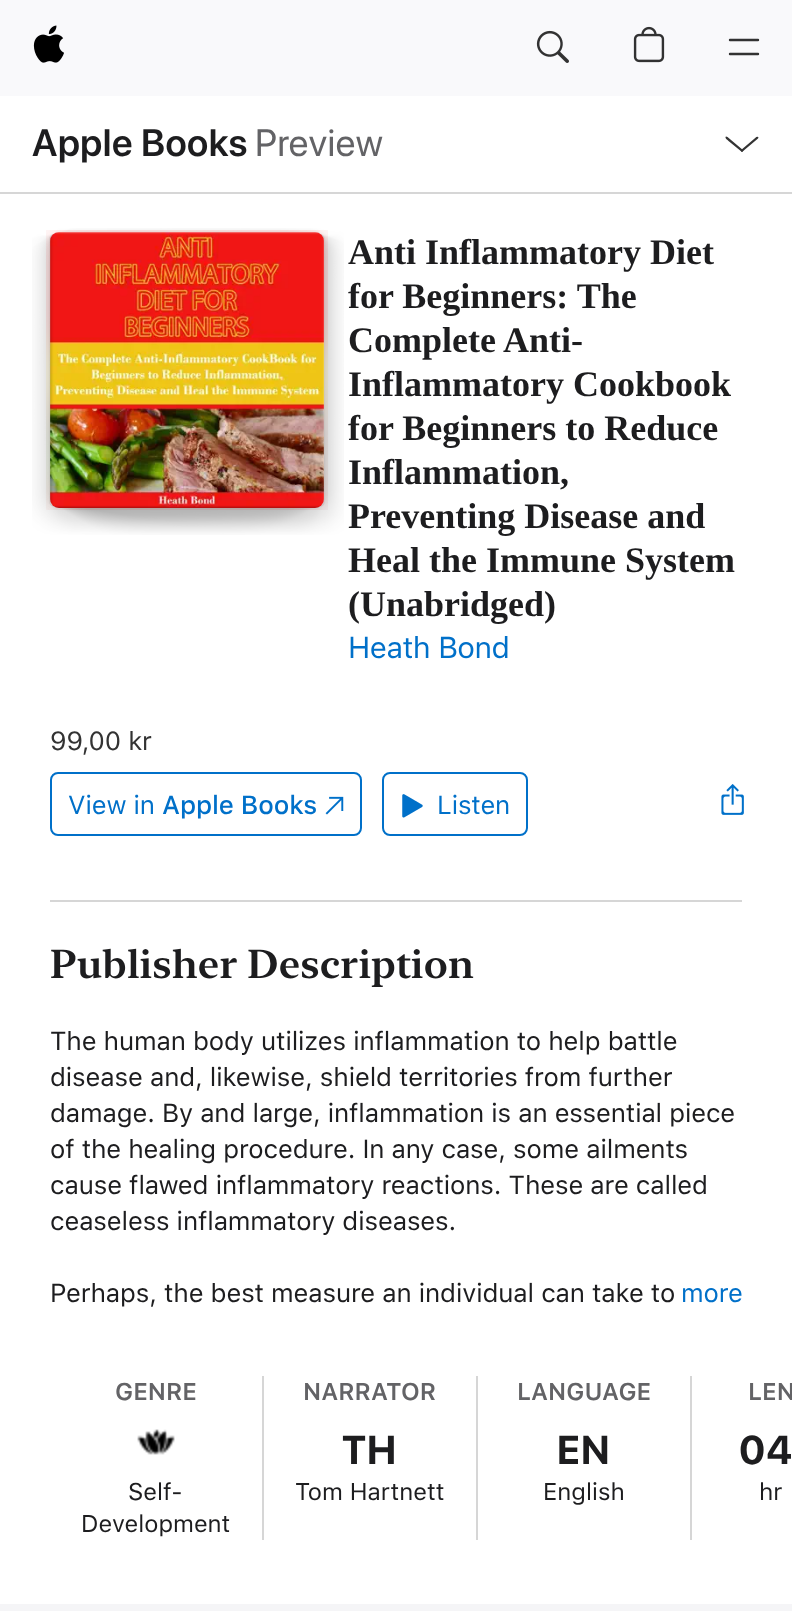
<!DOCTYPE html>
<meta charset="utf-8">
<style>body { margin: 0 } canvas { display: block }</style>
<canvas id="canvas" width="792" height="1611"></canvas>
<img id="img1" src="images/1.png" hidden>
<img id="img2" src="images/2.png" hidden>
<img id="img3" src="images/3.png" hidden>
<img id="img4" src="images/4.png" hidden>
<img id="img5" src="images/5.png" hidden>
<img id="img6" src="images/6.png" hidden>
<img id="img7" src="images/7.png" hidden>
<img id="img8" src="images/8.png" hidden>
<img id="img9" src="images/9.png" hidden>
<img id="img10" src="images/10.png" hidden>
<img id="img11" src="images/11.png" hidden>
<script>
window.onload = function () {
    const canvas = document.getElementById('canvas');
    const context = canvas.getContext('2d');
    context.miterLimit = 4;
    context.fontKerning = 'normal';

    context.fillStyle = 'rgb(245, 245, 247)';
    context.fillRect(0, 0, 792, 1611);
    context.fillStyle = 'rgb(249, 249, 251)';
    context.fillRect(0, 0, 792, 96);
    context.drawImage(document.getElementById('img1'), 33, 25, 31, 38);
    context.drawImage(document.getElementById('img2'), 536, 30, 33, 33);
    context.drawImage(document.getElementById('img3'), 633, 26, 32, 37);
    context.beginPath();
    context.moveTo(730, 54);
    context.lineTo(758, 54);
    context.moveTo(730, 40);
    context.lineTo(758, 40);
    context.strokeStyle = 'rgb(50, 50, 50)';
    context.lineWidth = 2.4;
    context.lineCap = 'round';
    context.lineJoin = 'round';
    context.stroke();
    context.fillStyle = 'rgb(255, 255, 255)';
    context.fillRect(0, 96, 792, 1508);
    context.fillStyle = 'rgb(51, 51, 51)';
    context.beginPath();
    context.moveTo(727.5, 137);
    context.lineTo(743.5, 150.5);
    context.lineTo(742, 152);
    context.lineTo(728.5, 141);
    context.bezierCurveTo(728.5, 140.5, 724, 138, 726, 136.5);
    context.closePath();
    context.fill();
    context.beginPath();
    context.moveTo(740.5, 150.5);
    context.lineTo(754, 139);
    context.bezierCurveTo(754, 139, 757.5, 135, 758.5, 137.5);
    context.lineTo(758, 138.5);
    context.lineTo(742, 152);
    context.closePath();
    context.fill();
    context.fillStyle = 'rgb(214, 214, 214)';
    context.fillRect(0, 192, 792, 2);
    context.drawImage(document.getElementById('img4'), 32, 228, 312, 307);
    context.drawImage(document.getElementById('img5'), 46, 230, 282, 280);
    context.drawImage(document.getElementById('img6'), 50, 232, 274, 276);
    context.drawImage(document.getElementById('img7'), 50, 232, 274, 276);
    context.beginPath();
    context.roundRect(51, 773, 310, 62, 7);
    context.strokeStyle = 'rgb(0, 112, 201)';
    context.lineWidth = 2;
    context.lineJoin = 'miter';
    context.stroke();
    context.drawImage(document.getElementById('img8'), 325, 796, 19, 19);
    context.beginPath();
    context.roundRect(383, 773, 144, 62, 7);
    context.stroke();
    context.drawImage(document.getElementById('img9'), 402, 794, 21, 24);
    context.drawImage(document.getElementById('img10'), 721, 784, 23, 31);
    context.fillRect(50, 900, 692, 2);
    context.fillRect(262, 1376, 2, 164);
    context.drawImage(document.getElementById('img11'), 137, 1429, 38, 26);
    context.fillRect(476, 1376, 2, 164);
    context.fillRect(690, 1376, 2, 164);
    context.letterSpacing = '0.5px';
    context.font = '600 38px SF Pro Display';
    context.fillStyle = 'rgb(29, 29, 31)';
    context.fillText('Apple Books', 32, 156);
    context.font = '38px SF Pro Display';
    context.fillStyle = 'rgb(99, 99, 102)';
    context.fillText('Preview', 255, 156);
    context.letterSpacing = '0px';
    context.font = 'bold 36px Liberation Serif';
    context.fillStyle = 'rgb(29, 29, 31)';
    context.fillText('Anti Inflammatory Diet', 348, 264);
    context.fillText('for Beginners: The', 348, 308);
    context.fillText('Complete Anti-', 348, 352);
    context.fillText('Inflammatory Cookbook', 348, 396);
    context.fillText('for Beginners to Reduce', 348, 440);
    context.fillText('Inflammation,', 348, 484);
    context.fillText('Preventing Disease and', 348, 528);
    context.fillText('Heal the Immune System', 348, 572);
    context.fillText('(Unabridged)', 348, 616);
    context.letterSpacing = '-0.5px';
    context.font = '30px SF Pro Text';
    context.fillStyle = 'rgb(0, 112, 201)';
    context.fillText('Heath Bond', 348, 658);
    context.letterSpacing = '-0.13px';
    context.font = '26px SF Pro Text';
    context.fillStyle = 'rgb(51, 51, 51)';
    context.fillText('99,00 kr', 50, 750);
    context.fillStyle = 'rgb(0, 112, 201)';
    context.fillText('View in', 68, 814);
    context.font = '500 26px SF Pro Text';
    context.fillText('Apple Books', 162, 814);
    context.font = '26px SF Pro Text';
    context.fillText('Listen', 437, 814);
    context.letterSpacing = '0px';
    context.font = '600 40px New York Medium';
    context.fillStyle = 'rgb(29, 29, 31)';
    context.fillText('Publisher Description', 50, 978);
    context.letterSpacing = '-0.13px';
    context.font = '26px SF Pro Text';
    context.fillText('The human body utilizes inflammation to help battle', 50, 1050);
    context.fillText('disease and, likewise, shield territories from further', 50, 1086);
    context.fillText('damage. By and large, inflammation is an essential piece', 50, 1122);
    context.fillText('of the healing procedure. In any case, some ailments', 50, 1158);
    context.fillText('cause flawed inflammatory reactions. These are called', 50, 1194);
    context.fillText('ceaseless inflammatory diseases.', 50, 1230);
    context.fillText('Perhaps, the best measure an individual can take to', 50, 1302);
    context.fillStyle = 'rgb(0, 112, 201)';
    context.fillText('more', 681, 1302);
    context.letterSpacing = '0px';
    context.font = '600 24px SF Pro Text';
    context.fillStyle = 'rgb(99, 99, 102)';
    context.fillText('GENRE', 115, 1400);
    context.font = '24px SF Pro Text';
    context.fillStyle = 'rgb(29, 29, 31)';
    context.fillText('Self-', 128, 1500);
    context.fillText('Development', 81, 1532);
    context.font = '600 24px SF Pro Text';
    context.fillStyle = 'rgb(99, 99, 102)';
    context.fillText('NARRATOR', 303, 1400);
    context.letterSpacing = '1px';
    context.font = 'bold 40px SF Pro Display';
    context.fillStyle = 'rgb(29, 29, 31)';
    context.fillText('TH', 342, 1464);
    context.letterSpacing = '0px';
    context.font = '24px SF Pro Text';
    context.fillText('Tom Hartnett', 295, 1500);
    context.font = '600 24px SF Pro Text';
    context.fillStyle = 'rgb(99, 99, 102)';
    context.fillText('LANGUAGE', 517, 1400);
    context.letterSpacing = '1px';
    context.font = 'bold 40px SF Pro Display';
    context.fillStyle = 'rgb(29, 29, 31)';
    context.fillText('EN', 557, 1464);
    context.letterSpacing = '0px';
    context.font = '24px SF Pro Text';
    context.fillText('English', 543, 1500);
    context.font = '600 24px SF Pro Text';
    context.fillStyle = 'rgb(99, 99, 102)';
    context.fillText('LEN', 748, 1400);
    context.letterSpacing = '1px';
    context.font = 'bold 40px SF Pro Display';
    context.fillStyle = 'rgb(29, 29, 31)';
    context.fillText('04', 739, 1464);
    context.letterSpacing = '0px';
    context.font = '24px SF Pro Text';
    context.fillText('hr', 759, 1500);
};
</script>
